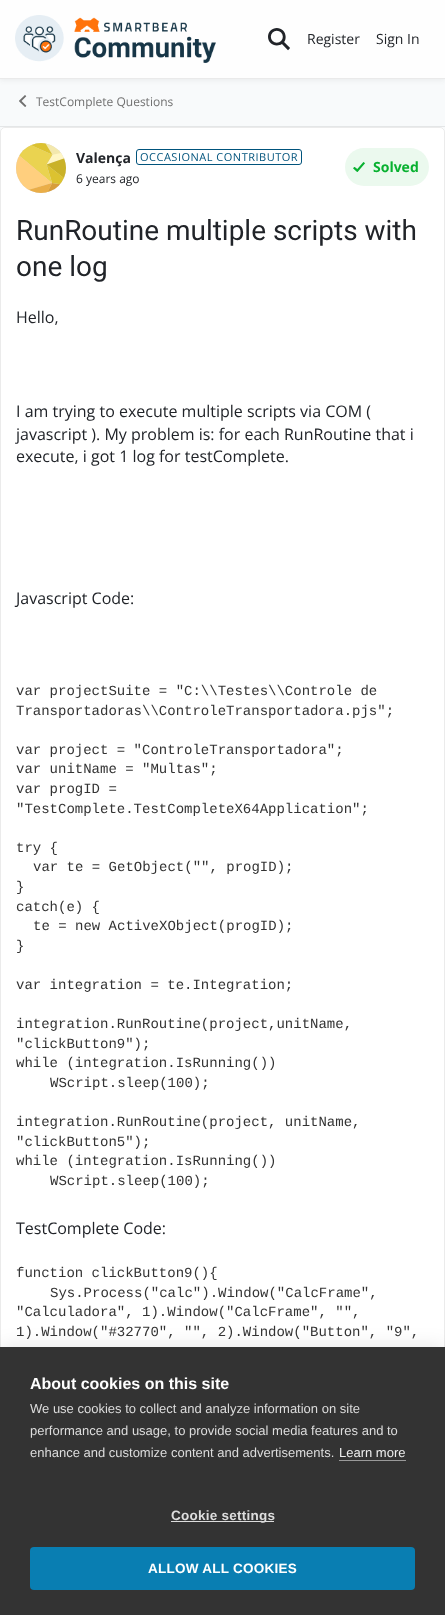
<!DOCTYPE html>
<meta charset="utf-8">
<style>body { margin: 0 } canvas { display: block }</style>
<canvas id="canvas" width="445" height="1615"></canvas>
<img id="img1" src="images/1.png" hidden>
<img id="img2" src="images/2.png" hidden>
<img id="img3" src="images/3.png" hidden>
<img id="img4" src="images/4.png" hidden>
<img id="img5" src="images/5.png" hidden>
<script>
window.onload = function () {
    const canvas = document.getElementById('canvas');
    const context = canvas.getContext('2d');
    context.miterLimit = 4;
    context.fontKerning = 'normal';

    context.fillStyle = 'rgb(248, 250, 251)';
    context.fillRect(0, 0, 445, 1615);
    context.fillStyle = 'rgba(51, 51, 51, 0.06)';
    context.filter = 'blur(2px)';
    context.beginPath();
    context.rect(0, 2, 445, 79);
    context.fill();
    context.filter = 'none';
    context.fillStyle = 'rgb(254, 254, 254)';
    context.fillRect(0, 0, 445, 78);
    context.fillStyle = 'rgb(234, 234, 234)';
    context.fillRect(0, 78, 445, 1);
    context.drawImage(document.getElementById('img1'), 15, 15, 201, 48);
    context.drawImage(document.getElementById('img2'), 268, 28, 22, 23);
    context.fillStyle = 'rgb(228, 230, 231)';
    context.fillRect(0, 126, 445, 1);
    context.drawImage(document.getElementById('img3'), 19, 95, 8, 12);
    context.fillStyle = 'rgb(255, 255, 255)';
    context.beginPath();
    context.roundRect(0, 127, 445, 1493, 5);
    context.fill();
    context.beginPath();
    context.roundRect(0.5, 127.5, 444, 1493, 4.5);
    context.strokeStyle = 'rgba(0, 0, 0, 0.08)';
    context.stroke();
    context.fillStyle = 'rgb(217, 217, 217)';
    context.beginPath();
    context.arc(41, 168, 25, 0, 2 * Math.PI);
    context.fill();
    context.drawImage(document.getElementById('img4'), 16, 143, 50, 50);
    context.beginPath();
    context.roundRect(136.5, 149.5, 165, 15, 2.5);
    context.strokeStyle = 'rgb(0, 83, 124)';
    context.stroke();
    context.fillStyle = 'rgb(235, 249, 238)';
    context.beginPath();
    context.roundRect(345, 148, 84, 38, 19);
    context.fill();
    context.drawImage(document.getElementById('img5'), 353, 162, 12, 10);
    context.fillStyle = 'rgba(0, 0, 0, 0.1)';
    context.filter = 'blur(10px)';
    context.beginPath();
    context.rect(0, 1347, 445, 268);
    context.fill();
    context.filter = 'none';
    context.fillStyle = 'rgb(51, 51, 51)';
    context.fillRect(0, 1347, 445, 268);
    context.fillStyle = 'rgb(153, 153, 153)';
    context.fillRect(339, 1460, 67, 1);
    context.fillStyle = 'rgb(221, 221, 221)';
    context.fillRect(171, 1521, 103, 1);
    context.fillStyle = 'rgb(9, 126, 178)';
    context.beginPath();
    context.roundRect(30, 1547, 385, 43, 4);
    context.fill();
    context.font = '14px Open Sans';
    context.fillStyle = 'rgb(33, 36, 41)';
    context.fillText('Register', 307, 44);
    context.fillText('Sign In', 376, 44);
    context.font = '12px Open Sans';
    context.fillStyle = 'rgb(112, 112, 112)';
    context.fillText('TestComplete Questions', 36, 106);
    context.font = 'bold 14px Open Sans';
    context.fillStyle = 'rgb(33, 36, 41)';
    context.fillText('Valença', 76, 163);
    context.letterSpacing = '0.5px';
    context.font = '11px Open Sans';
    context.fillStyle = 'rgb(0, 83, 124)';
    context.fillText('OCCASIONAL CONTRIBUTOR', 140, 161);
    context.letterSpacing = '0px';
    context.font = '12px Open Sans';
    context.fillStyle = 'rgb(33, 36, 41)';
    context.fillText('6 years ago', 76, 183);
    context.font = 'bold 14px Open Sans';
    context.fillStyle = 'rgb(8, 177, 48)';
    context.fillText('Solved', 373, 172);
    context.font = '28px Roboto';
    context.fillStyle = 'rgb(33, 36, 41)';
    context.fillText('RunRoutine multiple scripts with', 16, 240);
    context.fillText('one log', 16, 276);
    context.font = '16px Open Sans';
    context.fillText('Hello,', 16, 323);
    context.fillText('I am trying to execute multiple scripts via COM (', 16, 417);
    context.fillText('javascript ). My problem is: for each RunRoutine that i', 16, 440);
    context.fillText('execute, i got 1 log for testComplete.', 16, 462);
    context.fillText('Javascript Code:', 16, 604);
    context.font = '14px Liberation Mono';
    context.fillStyle = 'rgb(51, 51, 51)';
    context.fillText('var projectSuite = "C:\\\\Testes\\\\Controle de', 16, 695);
    context.fillText('Transportadoras\\\\ControleTransportadora.pjs";', 16, 715);
    context.fillText('var project = "ControleTransportadora";', 16, 754);
    context.fillText('var unitName = "Multas";', 16, 773);
    context.fillText('var progID =', 16, 793);
    context.fillText('"TestComplete.TestCompleteX64Application";', 16, 813);
    context.fillText('try {', 16, 852);
    context.fillText('var te = GetObject("", progID);', 33, 871);
    context.fillText('}', 16, 891);
    context.fillText('catch(e) {', 16, 911);
    context.fillText('te = new ActiveXObject(progID);', 33, 930);
    context.fillText('}', 16, 950);
    context.fillText('var integration = te.Integration;', 16, 989);
    context.fillText('integration.RunRoutine(project,unitName,', 16, 1028);
    context.fillText('"clickButton9");', 16, 1048);
    context.fillText('while (integration.IsRunning())', 16, 1067);
    context.fillText('WScript.sleep(100);', 50, 1087);
    context.fillText('integration.RunRoutine(project, unitName,', 16, 1126);
    context.fillText('"clickButton5");', 16, 1146);
    context.fillText('while (integration.IsRunning())', 16, 1165);
    context.fillText('WScript.sleep(100);', 50, 1185);
    context.font = '16px Open Sans';
    context.fillStyle = 'rgb(33, 36, 41)';
    context.fillText('TestComplete Code:', 16, 1234);
    context.font = '14px Liberation Mono';
    context.fillStyle = 'rgb(51, 51, 51)';
    context.fillText('function clickButton9(){', 16, 1277);
    context.fillText('Sys.Process("calc").Window("CalcFrame",', 50, 1297);
    context.fillText('"Calculadora", 1).Window("CalcFrame", "",', 16, 1316);
    context.fillText('1).Window("#32770", "", 2).Window("Button", "9",', 16, 1336);
    context.font = 'bold 16px Liberation Sans';
    context.fillStyle = 'rgb(255, 255, 255)';
    context.fillText('About cookies on this site', 30, 1389);
    context.font = '13px Liberation Sans';
    context.fillStyle = 'rgb(221, 221, 221)';
    context.fillText('We use cookies to collect and analyze information on site', 30, 1413);
    context.fillText('performance and usage, to provide social media features and to', 30, 1435);
    context.fillText('enhance and customize content and advertisements.', 30, 1457);
    context.fillStyle = 'rgb(238, 238, 238)';
    context.fillText('Learn more', 339, 1457);
    context.letterSpacing = '0.25px';
    context.font = 'bold 13.5px Liberation Sans';
    context.fillStyle = 'rgb(221, 221, 221)';
    context.fillText('Cookie settings', 171, 1520);
    context.fillStyle = 'rgb(255, 255, 255)';
    context.fillText('ALLOW ALL COOKIES', 148, 1573);
};
</script>
